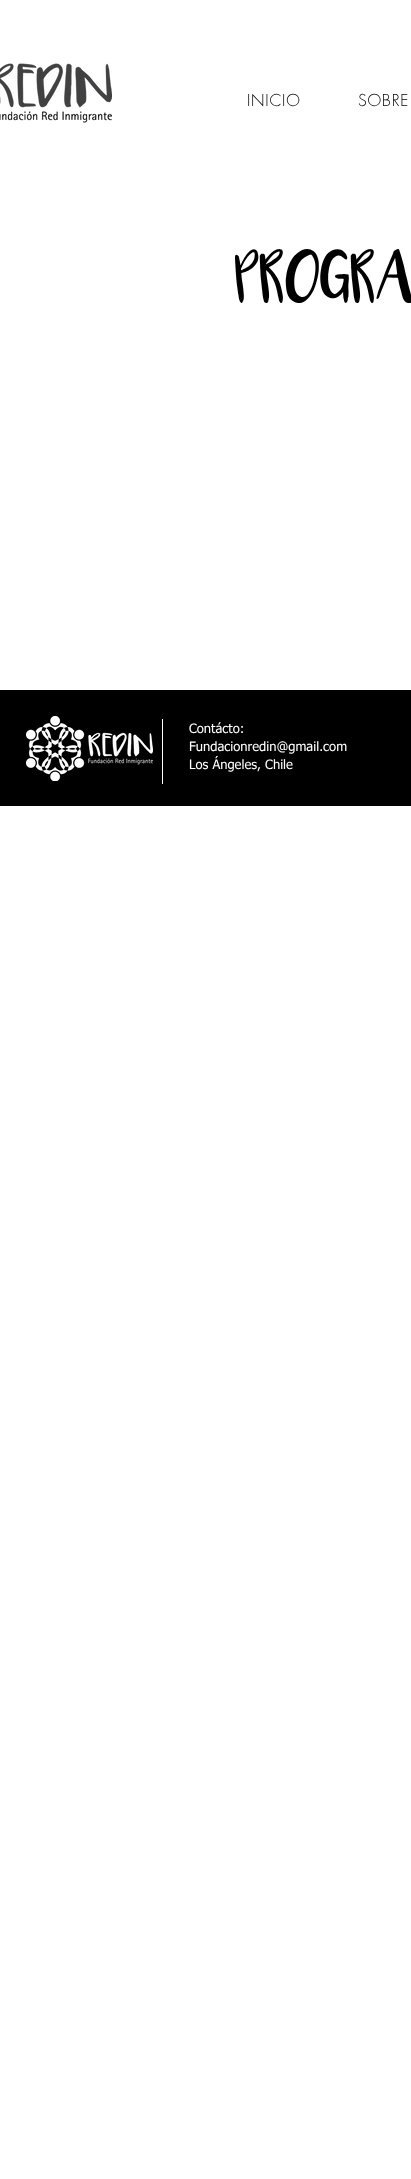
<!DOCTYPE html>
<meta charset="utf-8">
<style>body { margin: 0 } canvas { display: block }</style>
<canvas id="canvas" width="411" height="2179"></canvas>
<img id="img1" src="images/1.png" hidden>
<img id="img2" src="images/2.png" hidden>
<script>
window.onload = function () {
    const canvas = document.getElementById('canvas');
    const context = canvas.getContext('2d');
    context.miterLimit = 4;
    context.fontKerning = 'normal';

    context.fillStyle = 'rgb(255, 255, 255)';
    context.fillRect(0, 0, 411, 2179);
    context.drawImage(document.getElementById('img1'), 0, 63, 112, 60);
    context.fillStyle = 'rgb(0, 0, 0)';
    context.fillRect(0, 690, 411, 116);
    context.drawImage(document.getElementById('img2'), 26, 716, 127, 65);
    context.fillStyle = 'rgb(255, 255, 255)';
    context.fillRect(162, 719, 1, 65);
    context.letterSpacing = '0.75px';
    context.font = '300 16px futura';
    context.fillStyle = 'rgb(0, 0, 0)';
    context.fillText('INICIO', 247, 106);
    context.fillText('SOBRE', 358, 106);
    context.letterSpacing = '0px';
    context.font = '40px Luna';
    context.fillText('PROGRA', 235, 303);
    context.font = '13px tahoma';
    context.fillStyle = 'rgb(255, 255, 255)';
    context.fillText('Contácto:', 189, 733);
    context.fillText('Fundacionredin@gmail.com', 189, 751);
    context.fillText('Los Ángeles, Chile', 189, 769);
};
</script>
